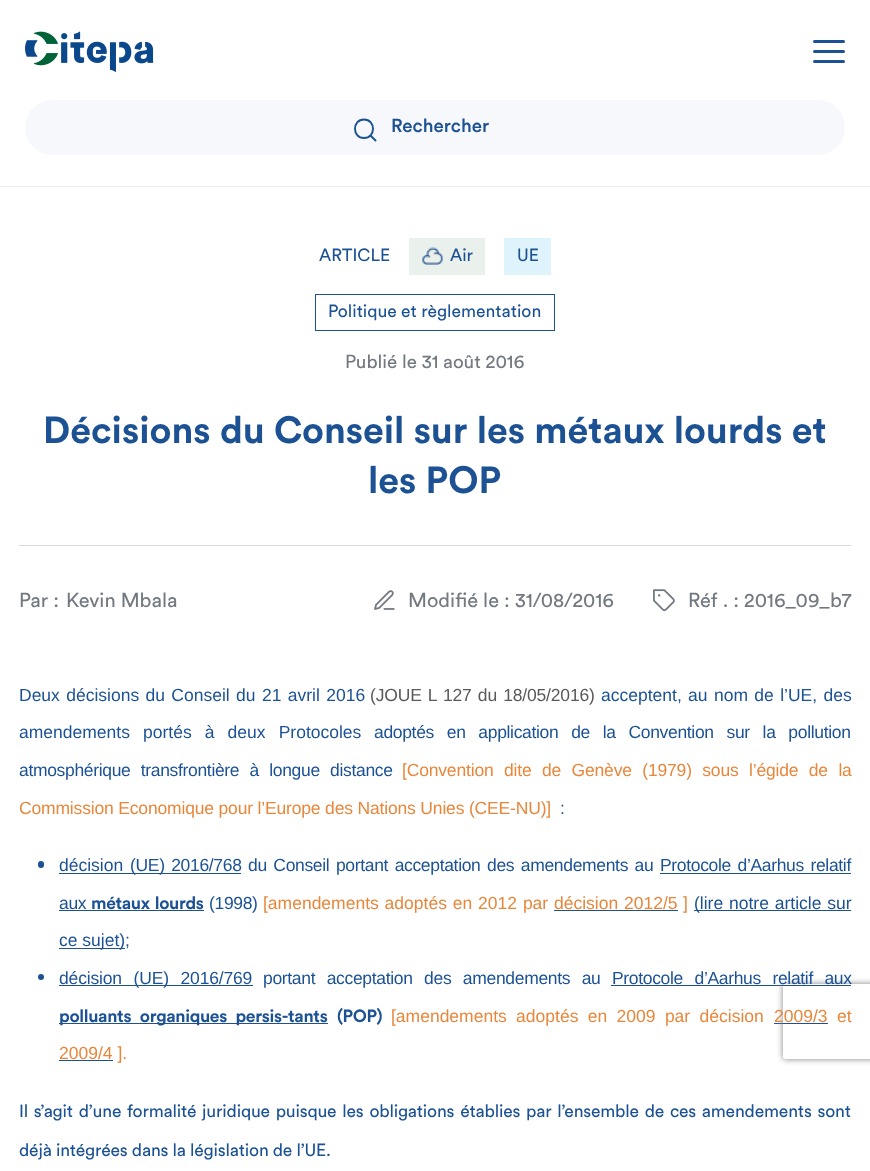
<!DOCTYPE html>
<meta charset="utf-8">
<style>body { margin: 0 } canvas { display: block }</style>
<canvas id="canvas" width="870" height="1171"></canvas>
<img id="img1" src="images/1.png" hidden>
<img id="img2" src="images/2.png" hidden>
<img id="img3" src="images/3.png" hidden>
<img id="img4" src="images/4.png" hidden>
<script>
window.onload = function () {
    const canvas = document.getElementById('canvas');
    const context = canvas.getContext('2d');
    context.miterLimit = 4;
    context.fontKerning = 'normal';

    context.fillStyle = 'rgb(255, 255, 255)';
    context.fillRect(0, 0, 870, 1171);
    context.fillStyle = 'rgb(239, 239, 239)';
    context.fillRect(0, 186, 870, 1);
    context.drawImage(document.getElementById('img1'), 25, 31, 129, 41);
    context.fillStyle = 'rgb(28, 82, 148)';
    context.beginPath();
    context.roundRect(813, 40, 32, 3, 1.5);
    context.fill();
    context.beginPath();
    context.roundRect(813, 50, 32, 3, 1.5);
    context.fill();
    context.beginPath();
    context.roundRect(813, 60, 32, 3, 1.5);
    context.fill();
    context.fillStyle = 'rgb(246, 248, 251)';
    context.beginPath();
    context.roundRect(25, 100, 820, 55, 27.5);
    context.fill();
    context.beginPath();
    context.moveTo(364, 138);
    context.bezierCurveTo(376, 138, 376, 119.5, 364, 119.5);
    context.bezierCurveTo(352, 119.5, 352, 138, 364, 138);
    context.closePath();
    context.moveTo(375.5, 140.5);
    context.lineTo(370.5, 135.5);
    context.strokeStyle = 'rgb(28, 82, 148)';
    context.lineWidth = 1.9;
    context.lineCap = 'round';
    context.lineJoin = 'round';
    context.stroke();
    context.fillStyle = 'rgb(234, 240, 236)';
    context.fillRect(409, 238, 76, 37);
    context.drawImage(document.getElementById('img2'), 422, 247, 21, 18);
    context.fillStyle = 'rgb(222, 243, 251)';
    context.fillRect(504, 238, 47, 37);
    context.lineWidth = 1;
    context.lineJoin = 'miter';
    context.strokeRect(315.5, 294.5, 239, 36);
    context.fillStyle = 'rgb(218, 218, 218)';
    context.fillRect(19, 545, 832, 1);
    context.drawImage(document.getElementById('img3'), 374, 590, 21, 20);
    context.drawImage(document.getElementById('img4'), 653, 589, 22, 23);
    context.fillStyle = 'rgb(28, 82, 148)';
    context.beginPath();
    context.roundRect(38, 861, 6, 7, 3);
    context.fill();
    context.fillRect(59, 873, 182, 1);
    context.fillRect(660, 873, 191, 1);
    context.fillRect(59, 910, 145, 1);
    context.fillRect(554, 910, 124, 1);
    context.fillRect(694, 910, 157, 1);
    context.fillRect(59, 948, 66, 1);
    context.beginPath();
    context.arc(41, 977, 3, 0, 2 * Math.PI);
    context.fill();
    context.fillRect(59, 985, 194, 1);
    context.fillRect(611, 985, 240, 1);
    context.fillRect(59, 1023, 269, 1);
    context.fillRect(774, 1023, 54, 1);
    context.fillRect(59, 1060, 54, 1);
    context.save();
    context.beginPath();
    context.moveTo(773, 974);
    context.lineTo(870, 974);
    context.lineTo(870, 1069);
    context.lineTo(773, 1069);
    context.closePath();
    context.moveTo(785.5, 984);
    context.lineTo(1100.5, 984);
    context.bezierCurveTo(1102, 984, 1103, 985, 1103, 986.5);
    context.lineTo(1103, 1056.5);
    context.bezierCurveTo(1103, 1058, 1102, 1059, 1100.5, 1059);
    context.lineTo(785.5, 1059);
    context.bezierCurveTo(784, 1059, 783, 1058, 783, 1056.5);
    context.lineTo(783, 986.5);
    context.bezierCurveTo(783, 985, 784, 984, 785.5, 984);
    context.closePath();
    context.clip('evenodd');
    context.fillStyle = 'rgb(128, 128, 128)';
    context.filter = 'blur(3px)';
    context.beginPath();
    context.roundRect(783, 984, 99, 75, 2.5);
    context.fill();
    context.filter = 'none';
    context.restore();
    context.font = '500 18.75px Circular';
    context.fillText('Rechercher', 391, 132);
    context.font = '17.5px Circular';
    context.fillText('ARTICLE', 319, 261);
    context.fillText('Air', 450, 261);
    context.fillText('UE', 517, 261);
    context.fillText('Politique et règlementation', 328, 317);
    context.font = '18.75px Circular';
    context.fillStyle = 'rgb(115, 121, 129)';
    context.fillText('Publié le 31 août 2016', 345, 368);
    context.font = 'bold 37.5px Circular';
    context.fillStyle = 'rgb(28, 82, 148)';
    context.fillText('Décisions du Conseil sur les métaux lourds et', 43, 443);
    context.fillText('les POP', 368, 493);
    context.font = '20px Circular';
    context.fillStyle = 'rgb(115, 121, 129)';
    context.fillText('Par :', 19, 607);
    context.fillText('Kevin Mbala', 66, 607);
    context.fillText('Modifié le : 31/08/2016', 408, 607);
    context.fillText('Réf . : 2016_09_b7', 688, 607);
    context.wordSpacing = '1.5px';
    context.font = '17.5px Liberation Sans';
    context.fillStyle = 'rgb(28, 82, 148)';
    context.fillText('Deux décisions du Conseil du 21 avril 2016', 19, 701);
    context.letterSpacing = '-0.17px';
    context.fillStyle = 'rgb(89, 89, 89)';
    context.fillText('(JOUE L 127 du 18/05/2016)', 370, 701);
    context.letterSpacing = '0px';
    context.fillStyle = 'rgb(28, 82, 148)';
    context.fillText('acceptent, au nom de l’UE, des', 601, 701);
    context.wordSpacing = '8.25px';
    context.fillText('amendements portés à deux Protocoles', 19, 738);
    context.letterSpacing = '-0.33px';
    context.fillText('adoptés en application de la Convention sur la pollution', 374, 738);
    context.wordSpacing = '5.75px';
    context.fillText('atmosphérique transfrontière à longue distance', 19, 776);
    context.letterSpacing = '-0.17px';
    context.fillStyle = 'rgb(231, 135, 59)';
    context.fillText('[Convention dite de Genève (1979) sous l’égide de la', 402, 776);
    context.wordSpacing = '0px';
    context.fillText('Commission Economique pour l’Europe des Nations Unies (CEE-NU)]', 19, 814);
    context.letterSpacing = '-0.33px';
    context.fillStyle = 'rgb(28, 82, 148)';
    context.fillText(':', 560, 814);
    context.letterSpacing = '0px';
    context.fillText('décision', 59, 871);
    context.letterSpacing = '-0.33px';
    context.wordSpacing = '2px';
    context.fillText('(UE) 2016/768', 130, 871);
    context.fillText('du Conseil portant acceptation des amendements au', 248, 871);
    context.fillText('Protocole d’Aarhus relatif', 660, 871);
    context.wordSpacing = '0px';
    context.fillText('aux', 59, 909);
    context.wordSpacing = '1px';
    context.font = 'bold 17.5px Circular';
    context.fillText('métaux lourds', 91, 909);
    context.wordSpacing = '0px';
    context.font = '17.5px Liberation Sans';
    context.fillText('(1998)', 209, 909);
    context.letterSpacing = '0px';
    context.wordSpacing = '1px';
    context.fillStyle = 'rgb(231, 135, 59)';
    context.fillText('[amendements adoptés en 2012 par', 263, 909);
    context.fillText('décision 2012/5', 554, 909);
    context.wordSpacing = '0px';
    context.fillText(']', 683, 909);
    context.wordSpacing = '1px';
    context.fillStyle = 'rgb(28, 82, 148)';
    context.fillText('(lire notre article sur', 694, 909);
    context.wordSpacing = '0px';
    context.fillText('ce sujet)', 59, 946);
    context.fillText(';', 125, 946);
    context.letterSpacing = '-0.17px';
    context.wordSpacing = '7px';
    context.fillText('décision (UE) 2016/769', 59, 984);
    context.letterSpacing = '-0.33px';
    context.fillText('portant acceptation des amendements au', 263, 984);
    context.fillText('Protocole d’Aarhus relatif aux', 612, 984);
    context.wordSpacing = '4.5px';
    context.font = 'bold 17.5px Circular';
    context.fillText('polluants organiques persis-tants', 59, 1022);
    context.wordSpacing = '0px';
    context.fillText('(POP)', 337, 1022);
    context.letterSpacing = '0px';
    context.wordSpacing = '4.5px';
    context.font = '17.5px Liberation Sans';
    context.fillStyle = 'rgb(231, 135, 59)';
    context.fillText('[amendements adoptés en 2009 par décision', 391, 1022);
    context.wordSpacing = '0px';
    context.fillText('2009/3', 774, 1022);
    context.fillText('et', 837, 1022);
    context.fillText('2009/4 ].', 59, 1059);
    context.letterSpacing = '-0.17px';
    context.wordSpacing = '1.6px';
    context.font = '17.5px Circular';
    context.fillStyle = 'rgb(28, 82, 148)';
    context.fillText('Il s’agit d’une formalité juridique puisque les obligations établies par l’ensemble de ces amendements sont', 19, 1117);
    context.wordSpacing = '0px';
    context.fillText('déjà intégrées dans la législation de l’UE.', 19, 1156);
};
</script>
